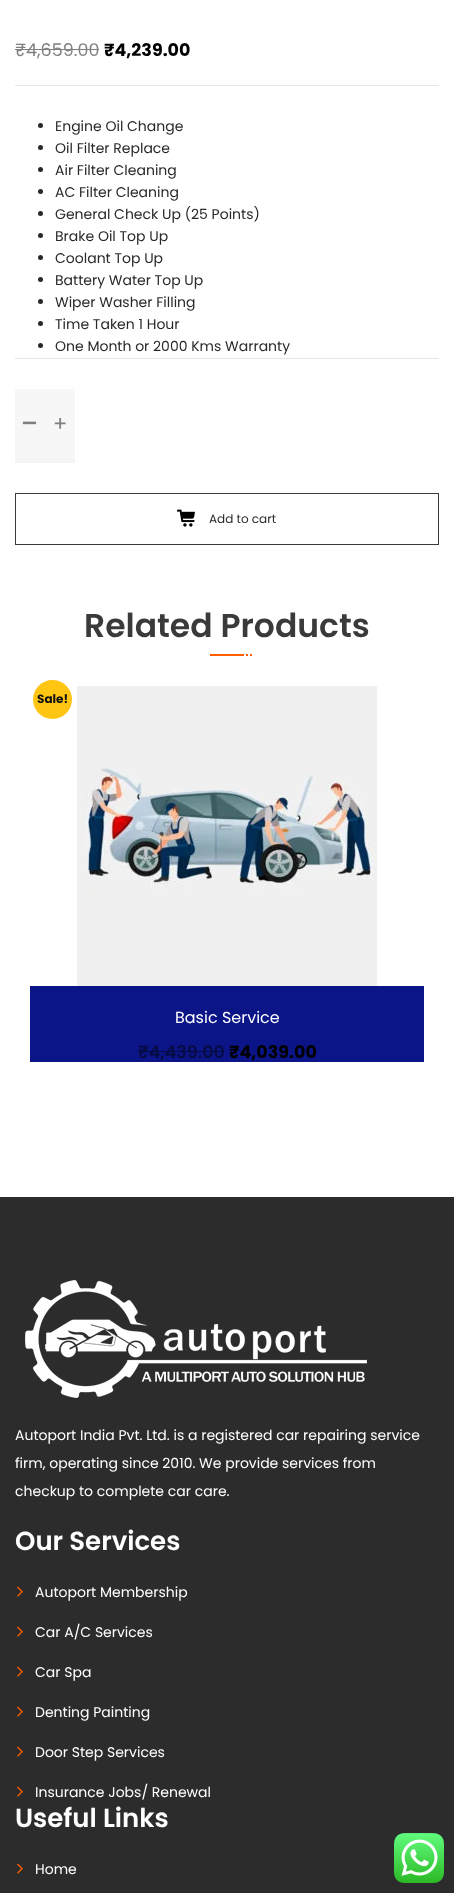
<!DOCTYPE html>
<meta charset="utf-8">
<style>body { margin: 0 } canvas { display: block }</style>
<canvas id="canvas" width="454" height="1893"></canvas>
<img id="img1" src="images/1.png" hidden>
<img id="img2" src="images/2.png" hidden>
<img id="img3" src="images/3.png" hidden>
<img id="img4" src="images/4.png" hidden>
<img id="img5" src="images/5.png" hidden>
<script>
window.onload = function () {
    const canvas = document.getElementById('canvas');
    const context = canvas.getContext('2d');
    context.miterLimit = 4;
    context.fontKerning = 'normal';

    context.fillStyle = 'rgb(255, 255, 255)';
    context.fillRect(0, 0, 454, 1893);
    context.fillStyle = 'rgb(128, 128, 128)';
    context.fillRect(15, 49, 84, 1);
    context.fillStyle = 'rgb(231, 231, 231)';
    context.fillRect(15, 85, 424, 1);
    context.fillRect(15, 358, 424, 1);
    context.fillStyle = 'rgb(41, 41, 41)';
    context.beginPath();
    context.arc(40.5, 125.5, 2.5, 0, 2 * Math.PI);
    context.fill();
    context.beginPath();
    context.arc(40.5, 147.5, 2.5, 0, 2 * Math.PI);
    context.fill();
    context.beginPath();
    context.arc(40.5, 169.5, 2.5, 0, 2 * Math.PI);
    context.fill();
    context.beginPath();
    context.arc(40.5, 191.5, 2.5, 0, 2 * Math.PI);
    context.fill();
    context.beginPath();
    context.arc(40.5, 213.5, 2.5, 0, 2 * Math.PI);
    context.fill();
    context.beginPath();
    context.arc(40.5, 235.5, 2.5, 0, 2 * Math.PI);
    context.fill();
    context.beginPath();
    context.arc(40.5, 257.5, 2.5, 0, 2 * Math.PI);
    context.fill();
    context.beginPath();
    context.arc(40.5, 279.5, 2.5, 0, 2 * Math.PI);
    context.fill();
    context.beginPath();
    context.arc(40.5, 301.5, 2.5, 0, 2 * Math.PI);
    context.fill();
    context.beginPath();
    context.arc(40.5, 323.5, 2.5, 0, 2 * Math.PI);
    context.fill();
    context.beginPath();
    context.arc(40.5, 345.5, 2.5, 0, 2 * Math.PI);
    context.fill();
    context.fillStyle = 'rgb(245, 245, 245)';
    context.fillRect(15, 459, 60, 4);
    context.fillStyle = 'rgb(247, 247, 247)';
    context.fillRect(15, 389, 60, 70);
    context.strokeStyle = 'rgb(58, 58, 58)';
    context.strokeRect(15.5, 493.5, 423, 51);
    context.drawImage(document.getElementById('img1'), 177, 509, 18, 18);
    context.fillStyle = 'rgb(254, 94, 0)';
    context.fillRect(210, 654, 34, 2);
    context.fillRect(246, 654, 2, 2);
    context.fillRect(250, 654, 2, 2);
    context.fillStyle = 'rgb(255, 197, 19)';
    context.beginPath();
    context.arc(52.5, 699.5, 19.5, 0, 2 * Math.PI);
    context.fill();
    context.drawImage(document.getElementById('img2'), 77, 686, 300, 300);
    context.fillStyle = 'rgb(11, 21, 136)';
    context.fillRect(30, 986, 394, 76);
    context.fillStyle = 'rgb(6, 11, 68)';
    context.fillRect(138, 1051, 86, 1);
    context.fillStyle = 'rgb(44, 44, 44)';
    context.fillRect(0, 1197, 454, 696);
    context.drawImage(document.getElementById('img3'), 25, 1280, 342, 118);
    context.drawImage(document.getElementById('img4'), 17, 1586, 6, 11);
    context.drawImage(document.getElementById('img4'), 17, 1626, 6, 11);
    context.drawImage(document.getElementById('img4'), 17, 1666, 6, 11);
    context.drawImage(document.getElementById('img4'), 17, 1706, 6, 11);
    context.drawImage(document.getElementById('img4'), 17, 1746, 6, 11);
    context.drawImage(document.getElementById('img4'), 17, 1786, 6, 11);
    context.drawImage(document.getElementById('img4'), 17, 1863, 6, 11);
    context.drawImage(document.getElementById('img5'), 394, 1833, 50, 50);
    context.font = '17.5px Poppins';
    context.fillStyle = 'rgb(128, 128, 128)';
    context.fillText('₹4,659.00', 15, 56);
    context.font = 'bold 17.5px Poppins';
    context.fillStyle = 'rgb(0, 0, 0)';
    context.fillText('₹4,239.00', 104, 56);
    context.font = '14px Poppins';
    context.fillStyle = 'rgb(41, 41, 41)';
    context.fillText('Engine Oil Change', 55, 131);
    context.fillText('Oil Filter Replace', 55, 153);
    context.fillText('Air Filter Cleaning', 55, 175);
    context.fillText('AC Filter Cleaning', 55, 197);
    context.fillText('General Check Up (25 Points)', 55, 219);
    context.fillText('Brake Oil Top Up', 55, 241);
    context.fillText('Coolant Top Up', 55, 263);
    context.fillText('Battery Water Top Up', 55, 285);
    context.fillText('Wiper Washer Filling', 55, 307);
    context.fillText('Time Taken 1 Hour', 55, 329);
    context.fillText('One Month or 2000 Kms Warranty', 55, 351);
    context.font = '33px Poppins';
    context.fillStyle = 'rgb(128, 128, 128)';
    context.fillText('-', 21, 435);
    context.font = '21px Poppins';
    context.fillText('+', 53, 431);
    context.font = '12px Poppins';
    context.fillStyle = 'rgb(41, 41, 41)';
    context.fillText('Add to cart', 209, 523);
    context.font = '600 33px Poppins';
    context.fillStyle = 'rgb(58, 58, 58)';
    context.fillText('Related Products', 84, 637);
    context.font = 'bold 12px Poppins';
    context.fillStyle = 'rgb(17, 17, 17)';
    context.fillText('Sale!', 37, 703);
    context.font = '16px Poppins';
    context.fillStyle = 'rgb(255, 255, 255)';
    context.fillText('Basic Service', 175, 1023);
    context.font = '600 17.5px Poppins';
    context.fillStyle = 'rgb(6, 11, 68)';
    context.fillText('₹4,439.00', 138, 1058);
    context.font = 'bold 17.5px Poppins';
    context.fillStyle = 'rgb(0, 0, 0)';
    context.fillText('₹4,039.00', 229, 1058);
    context.font = '14px Poppins';
    context.fillStyle = 'rgb(255, 255, 255)';
    context.fillText('Autoport India Pvt. Ltd. is a registered car repairing service', 15, 1440);
    context.fillText('firm, operating since 2010. We provide services from', 15, 1468);
    context.fillText('checkup to complete car care.', 15, 1496);
    context.font = '600 26px Poppins';
    context.fillText('Our Services', 15, 1550);
    context.font = '14px Poppins';
    context.fillText('Autoport Membership', 35, 1597);
    context.fillText('Car A/C Services', 35, 1637);
    context.fillText('Car Spa', 35, 1677);
    context.fillText('Denting Painting', 35, 1717);
    context.fillText('Door Step Services', 35, 1757);
    context.fillText('Insurance Jobs/ Renewal', 35, 1797);
    context.font = '600 26px Poppins';
    context.fillText('Useful Links', 15, 1827);
    context.font = '14px Poppins';
    context.fillText('Home', 35, 1874);
};
</script>
